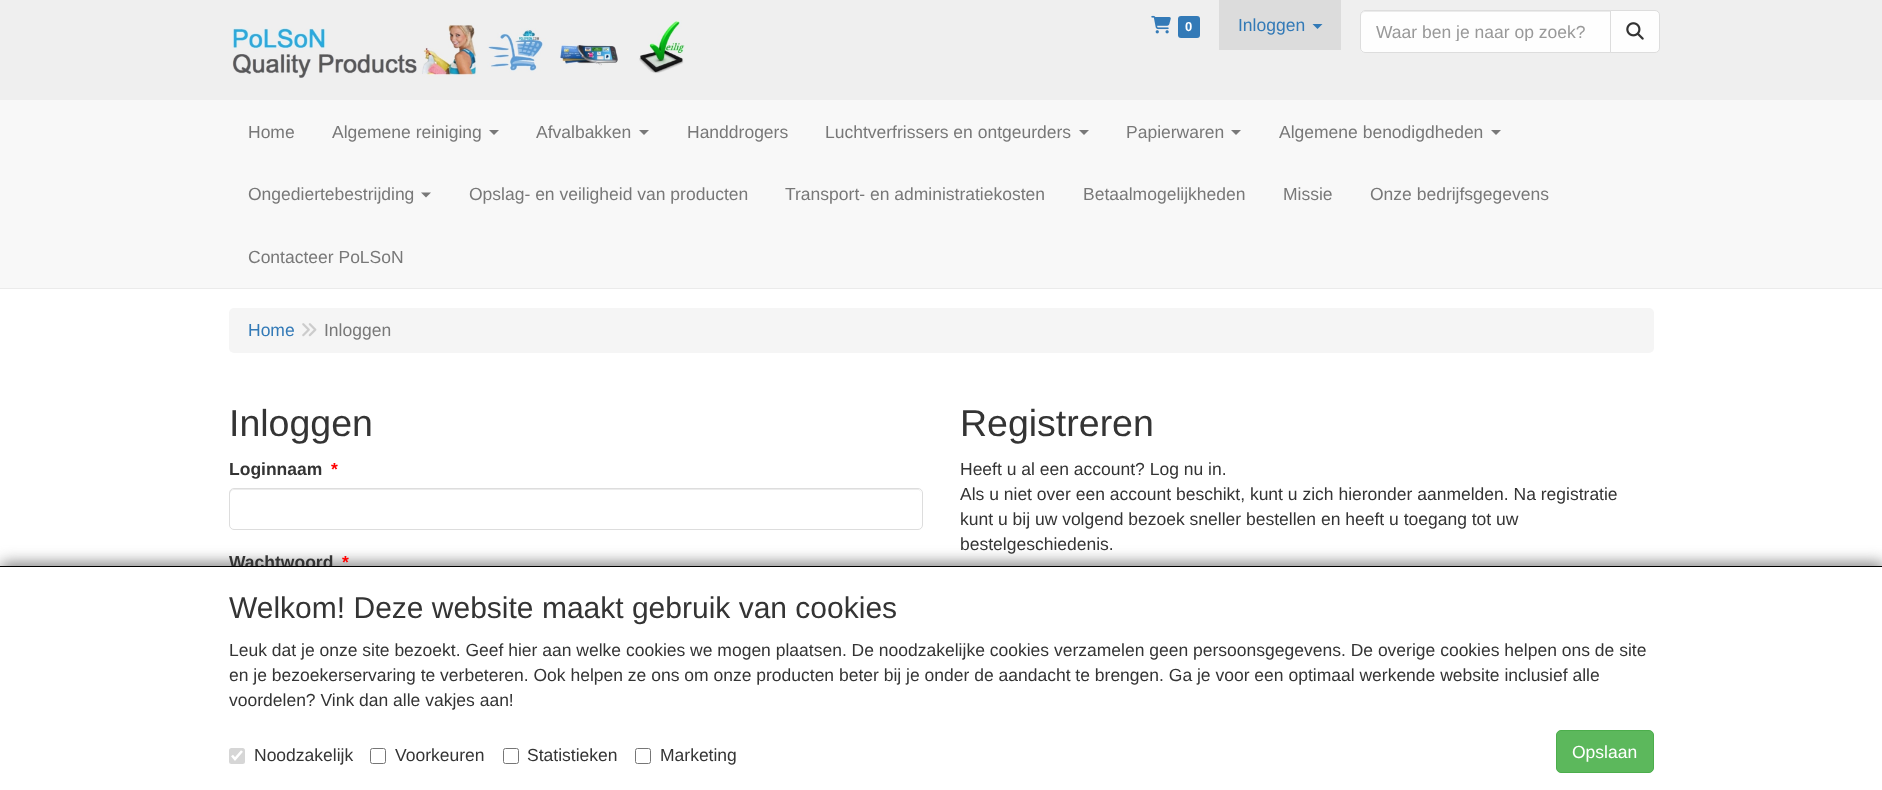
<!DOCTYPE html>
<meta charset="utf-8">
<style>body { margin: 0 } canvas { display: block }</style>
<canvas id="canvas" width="1882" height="790"></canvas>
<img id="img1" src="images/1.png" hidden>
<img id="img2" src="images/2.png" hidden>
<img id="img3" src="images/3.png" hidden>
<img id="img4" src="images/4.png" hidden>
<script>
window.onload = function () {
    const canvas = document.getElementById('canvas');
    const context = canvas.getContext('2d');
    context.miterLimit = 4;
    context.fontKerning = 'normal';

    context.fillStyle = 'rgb(255, 255, 255)';
    context.fillRect(0, 0, 1882, 790);
    context.fillStyle = 'rgb(239, 239, 239)';
    context.fillRect(0, 0, 1882, 100);
    context.drawImage(document.getElementById('img1'), 232, 20, 453, 58);
    context.drawImage(document.getElementById('img2'), 1151, 15, 20, 19);
    context.fillStyle = 'rgb(51, 122, 183)';
    context.beginPath();
    context.roundRect(1178, 16, 22, 22, 3);
    context.fill();
    context.fillStyle = 'rgb(220, 220, 220)';
    context.fillRect(1219, 0, 122, 50);
    context.fillStyle = 'rgb(51, 122, 183)';
    context.beginPath();
    context.moveTo(1312.5, 24);
    context.lineTo(1322.5, 24);
    context.lineTo(1317.5, 29);
    context.closePath();
    context.fill();
    context.fillStyle = 'rgb(254, 254, 254)';
    context.beginPath();
    context.roundRect(1360, 10, 251, 43, [5, 0, 0, 5]);
    context.fill();
    context.fillStyle = 'rgb(235, 235, 235)';
    context.beginPath();
    context.moveTo(1365, 12);
    context.lineTo(1610, 12);
    context.lineTo(1610, 11);
    context.lineTo(1365, 11);
    context.bezierCurveTo(1363, 11, 1361, 13, 1361, 15);
    context.lineTo(1361, 16);
    context.bezierCurveTo(1361, 14, 1363, 12, 1365, 12);
    context.closePath();
    context.fill();
    context.beginPath();
    context.roundRect(1360.5, 10.5, 250, 42, [4.5, 0, 0, 4.5]);
    context.strokeStyle = 'rgb(221, 221, 221)';
    context.stroke();
    context.fillStyle = 'rgb(254, 254, 254)';
    context.beginPath();
    context.roundRect(1610.5, 10.5, 49, 42, [0, 4.5, 4.5, 0]);
    context.fill();
    context.stroke();
    context.drawImage(document.getElementById('img3'), 1626, 22, 18, 18);
    context.fillStyle = 'rgb(248, 248, 248)';
    context.fillRect(0, 100, 1882, 188);
    context.fillStyle = 'rgb(235, 235, 235)';
    context.fillRect(0, 288, 1882, 1);
    context.fillStyle = 'rgb(120, 120, 120)';
    context.beginPath();
    context.moveTo(489, 130);
    context.lineTo(499, 130);
    context.lineTo(494, 135);
    context.closePath();
    context.fill();
    context.beginPath();
    context.moveTo(639, 130);
    context.lineTo(649, 130);
    context.lineTo(644, 135);
    context.closePath();
    context.fill();
    context.beginPath();
    context.moveTo(1079, 130);
    context.lineTo(1089, 130);
    context.lineTo(1084, 135);
    context.closePath();
    context.fill();
    context.beginPath();
    context.moveTo(1231, 130);
    context.lineTo(1241, 130);
    context.lineTo(1236, 135);
    context.closePath();
    context.fill();
    context.beginPath();
    context.moveTo(1491, 130);
    context.lineTo(1501, 130);
    context.lineTo(1496, 135);
    context.closePath();
    context.fill();
    context.beginPath();
    context.moveTo(421, 192.5);
    context.lineTo(431, 192.5);
    context.lineTo(426, 197.5);
    context.closePath();
    context.fill();
    context.fillStyle = 'rgb(245, 245, 245)';
    context.beginPath();
    context.roundRect(229, 308, 1425, 45, 5);
    context.fill();
    context.drawImage(document.getElementById('img4'), 302, 323, 15, 14);
    context.fillStyle = 'rgb(236, 236, 236)';
    context.beginPath();
    context.moveTo(234, 490);
    context.lineTo(918, 490);
    context.bezierCurveTo(920, 490, 921, 492, 921, 494);
    context.bezierCurveTo(921, 491, 920, 489, 917, 489);
    context.lineTo(234, 489);
    context.lineTo(231, 490);
    context.lineTo(230, 491);
    context.lineTo(230, 494);
    context.bezierCurveTo(230, 492, 232, 490, 234, 490);
    context.closePath();
    context.fill();
    context.beginPath();
    context.roundRect(229.5, 488.5, 693, 41, 4.5);
    context.stroke();
    context.fillStyle = 'rgb(128, 128, 128)';
    context.filter = 'blur(7.5px)';
    context.beginPath();
    context.rect(1, 563, 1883, 223);
    context.fill();
    context.filter = 'none';
    context.font = 'bold 13px Liberation Sans';
    context.fillStyle = 'rgb(255, 255, 255)';
    context.fillText('0', 1185, 31);
    context.font = '17.5px Liberation Sans';
    context.fillStyle = 'rgb(51, 122, 183)';
    context.fillText('Inloggen', 1238, 31);
    context.save();
    context.beginPath();
    context.rect(1376, 21, 222, 20);
    context.clip();
    context.fillStyle = 'rgb(153, 153, 153)';
    context.fillText('Waar ben je naar op zoek?', 1376, 38);
    context.restore();
    context.fillStyle = 'rgb(120, 120, 120)';
    context.fillText('Home', 248, 138);
    context.fillText('Algemene reiniging', 332, 138);
    context.fillText('Afvalbakken', 536, 138);
    context.fillText('Handdrogers', 687, 138);
    context.fillText('Luchtverfrissers en ontgeurders', 825, 138);
    context.fillText('Papierwaren', 1126, 138);
    context.fillText('Algemene benodigdheden', 1279, 138);
    context.fillText('Ongediertebestrijding', 248, 200);
    context.fillText('Opslag- en veiligheid van producten', 469, 200);
    context.fillText('Transport- en administratiekosten', 785, 200);
    context.fillText('Betaalmogelijkheden', 1083, 200);
    context.fillText('Missie', 1283, 200);
    context.fillText('Onze bedrijfsgegevens', 1370, 200);
    context.fillText('Contacteer PoLSoN', 248, 263);
    context.fillStyle = 'rgb(51, 122, 183)';
    context.fillText('Home', 248, 336);
    context.fillStyle = 'rgb(120, 120, 120)';
    context.fillText('Inloggen', 324, 336);
    context.font = '37.5px Liberation Sans';
    context.fillStyle = 'rgb(52, 52, 52)';
    context.fillText('Inloggen', 229, 436);
    context.font = 'bold 17.5px Liberation Sans';
    context.fillText('Loginnaam', 229, 475);
    context.fillStyle = 'rgb(255, 0, 0)';
    context.fillText('*', 331, 475);
    context.fillStyle = 'rgb(52, 52, 52)';
    context.fillText('Wachtwoord', 229, 568);
    context.fillStyle = 'rgb(255, 0, 0)';
    context.fillText('*', 342, 568);
    context.font = '37.5px Liberation Sans';
    context.fillStyle = 'rgb(52, 52, 52)';
    context.fillText('Registreren', 960, 436);
    context.font = '17.5px Liberation Sans';
    context.fillText('Heeft u al een account? Log nu in.', 960, 475);
    context.fillText('Als u niet over een account beschikt, kunt u zich hieronder aanmelden. Na registratie', 960, 500);
    context.fillText('kunt u bij uw volgend bezoek sneller bestellen en heeft u toegang tot uw', 960, 525);
    context.fillText('bestelgeschiedenis.', 960, 550);
    context.fillStyle = 'rgb(255, 255, 255)';
    context.fillRect(0, 567, 1882, 223);
    context.fillStyle = 'rgb(0, 0, 0)';
    context.fillRect(0, 566, 1882, 1);
    context.font = '30px Liberation Sans';
    context.fillStyle = 'rgb(52, 52, 52)';
    context.fillText('Welkom! Deze website maakt gebruik van cookies', 229, 618);
    context.font = '17.5px Liberation Sans';
    context.fillText('Leuk dat je onze site bezoekt. Geef hier aan welke cookies we mogen plaatsen. De noodzakelijke cookies verzamelen geen persoonsgegevens. De overige cookies helpen ons de site', 229, 656);
    context.fillText('en je bezoekerservaring te verbeteren. Ook helpen ze ons om onze producten beter bij je onder de aandacht te brengen. Ga je voor een optimaal werkende website inclusief alle', 229, 681);
    context.fillText('voordelen? Vink dan alle vakjes aan!', 229, 706);
    context.fillStyle = 'rgb(214, 214, 214)';
    context.beginPath();
    context.roundRect(229, 748, 16, 16, 2.5);
    context.fill();
    context.beginPath();
    context.moveTo(232, 755.5);
    context.lineTo(235, 759);
    context.lineTo(242, 751);
    context.strokeStyle = 'rgb(255, 255, 255)';
    context.lineWidth = 2.6;
    context.stroke();
    context.fillStyle = 'rgb(52, 52, 52)';
    context.fillText('Noodzakelijk', 254, 761);
    context.beginPath();
    context.roundRect(370.5, 748.5, 15, 15, 2);
    context.strokeStyle = 'rgb(118, 118, 118)';
    context.lineWidth = 1;
    context.stroke();
    context.fillText('Voorkeuren', 395, 761);
    context.beginPath();
    context.roundRect(503.5, 748.5, 15, 15, 2);
    context.stroke();
    context.fillText('Statistieken', 527, 761);
    context.beginPath();
    context.roundRect(635.5, 748.5, 15, 15, 2);
    context.stroke();
    context.fillText('Marketing', 660, 761);
    context.fillStyle = 'rgb(92, 184, 92)';
    context.beginPath();
    context.roundRect(1556.5, 730.5, 97, 42, 4.5);
    context.fill();
    context.strokeStyle = 'rgb(76, 174, 76)';
    context.stroke();
    context.fillStyle = 'rgb(255, 255, 255)';
    context.fillText('Opslaan', 1572, 758);
};
</script>
